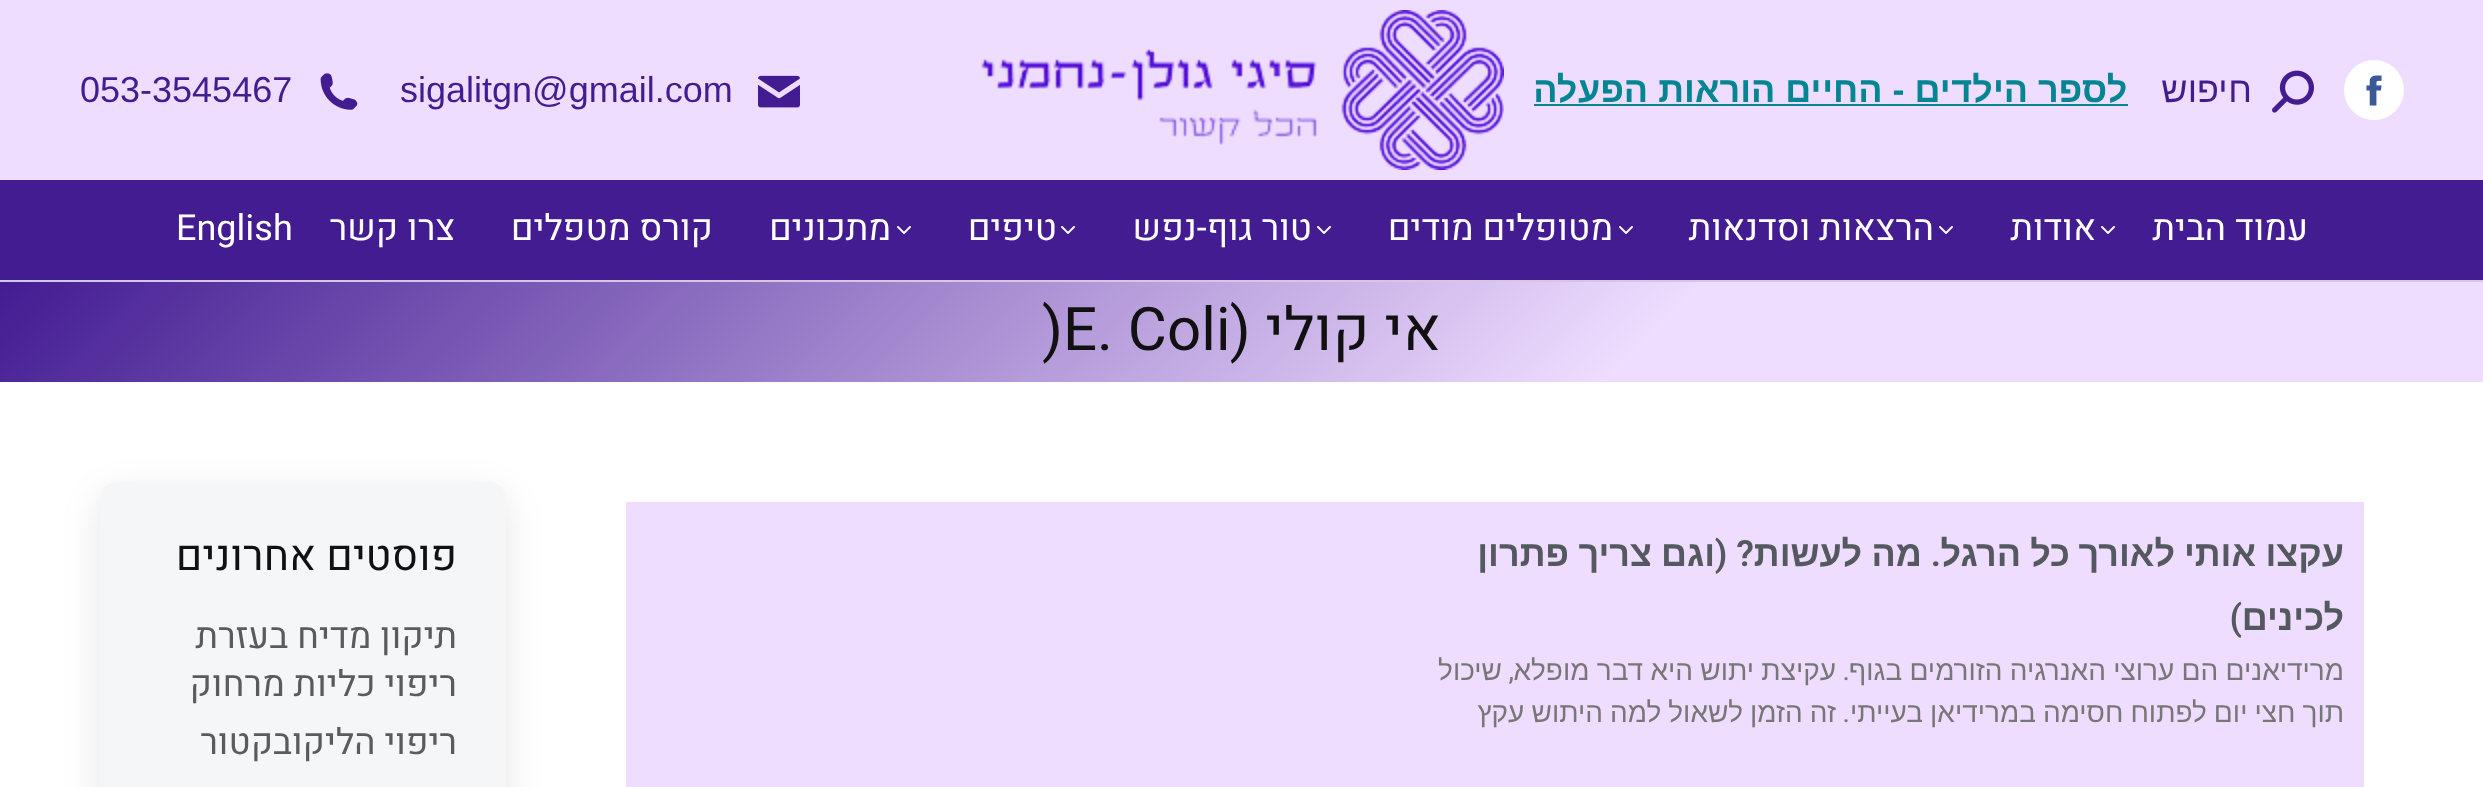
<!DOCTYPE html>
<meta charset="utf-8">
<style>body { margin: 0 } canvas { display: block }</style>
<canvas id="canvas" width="2483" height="787"></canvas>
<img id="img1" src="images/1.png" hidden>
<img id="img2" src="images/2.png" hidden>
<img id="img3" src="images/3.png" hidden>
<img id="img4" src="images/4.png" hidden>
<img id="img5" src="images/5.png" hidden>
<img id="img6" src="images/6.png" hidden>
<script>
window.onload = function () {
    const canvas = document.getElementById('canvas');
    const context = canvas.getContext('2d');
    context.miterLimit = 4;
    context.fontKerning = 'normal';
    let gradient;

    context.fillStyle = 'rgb(255, 255, 255)';
    context.fillRect(0, 0, 2483, 787);
    context.fillStyle = 'rgb(239, 221, 255)';
    context.fillRect(0, 0, 2483, 180);
    context.fillStyle = 'rgb(214, 198, 227)';
    context.fillRect(0, 280, 2483, 2);
    context.fillStyle = 'rgb(255, 255, 255)';
    context.beginPath();
    context.arc(2374, 90, 30, 0, 2 * Math.PI);
    context.fill();
    context.drawImage(document.getElementById('img1'), 2366, 75, 16, 31);
    context.drawImage(document.getElementById('img2'), 2272, 70, 42, 43);
    context.fillStyle = 'rgb(3, 133, 148)';
    context.fillRect(1534, 104, 594, 2);
    context.drawImage(document.getElementById('img3'), 981, 10, 523, 160);
    context.drawImage(document.getElementById('img4'), 758, 75, 42, 33);
    context.drawImage(document.getElementById('img5'), 320, 73, 38, 37);
    context.fillStyle = 'rgb(67, 28, 146)';
    context.fillRect(0, 180, 2483, 100);
    context.drawImage(document.getElementById('img6'), 2101, 226, 14, 8);
    context.drawImage(document.getElementById('img6'), 1939, 226, 14, 8);
    context.drawImage(document.getElementById('img6'), 1619, 226, 14, 8);
    context.drawImage(document.getElementById('img6'), 1317, 226, 14, 8);
    context.drawImage(document.getElementById('img6'), 1061, 226, 14, 8);
    context.drawImage(document.getElementById('img6'), 897, 226, 14, 8);
    gradient = context.createLinearGradient(596, -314, 1888, 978);
    gradient.addColorStop(0, 'rgb(67, 28, 146)');
    gradient.addColorStop(0.66, 'rgb(239, 221, 255)');
    context.fillStyle = gradient;
    context.fillRect(0, 282, 2483, 100);
    context.fillStyle = 'rgb(239, 221, 255)';
    context.fillRect(626, 502, 1738, 285);
    context.save();
    context.beginPath();
    context.moveTo(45, 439);
    context.lineTo(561, 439);
    context.lineTo(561, 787);
    context.lineTo(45, 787);
    context.closePath();
    context.moveTo(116, 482);
    context.lineTo(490, 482);
    context.bezierCurveTo(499, 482, 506, 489, 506, 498);
    context.lineTo(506, 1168);
    context.bezierCurveTo(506, 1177, 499, 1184, 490, 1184);
    context.lineTo(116, 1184);
    context.bezierCurveTo(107, 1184, 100, 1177, 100, 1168);
    context.lineTo(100, 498);
    context.bezierCurveTo(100, 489, 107, 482, 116, 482);
    context.closePath();
    context.clip('evenodd');
    context.fillStyle = 'rgba(0, 0, 0, 0.1)';
    context.filter = 'blur(18px)';
    context.beginPath();
    context.roundRect(100, 494, 406, 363, 16);
    context.fill();
    context.filter = 'none';
    context.restore();
    context.fillStyle = 'rgba(221, 224, 228, 0.29)';
    context.beginPath();
    context.roundRect(100, 482, 406, 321, 16);
    context.fill();
    context.direction = 'rtl';
    context.font = '36px Arimo';
    context.fillStyle = 'rgb(67, 28, 146)';
    context.fillText('חיפוש', 2252, 102);
    context.font = 'bold 36px Arimo';
    context.fillStyle = 'rgb(3, 133, 148)';
    context.fillText('לספר הילדים - החיים הוראות הפעלה', 2128, 102);
    context.direction = 'ltr';
    context.font = '36px Arimo';
    context.fillStyle = 'rgb(67, 28, 146)';
    context.fillText('sigalitgn@gmail.com', 400, 102);
    context.fillText('053-3545467', 80, 102);
    context.direction = 'rtl';
    context.font = '36px Heebo';
    context.fillStyle = 'rgb(255, 255, 255)';
    context.fillText('עמוד הבית', 2308, 240);
    context.fillText('אודות', 2096, 240);
    context.fillText('הרצאות וסדנאות', 1934, 240);
    context.fillText('מטופלים מודים', 1613, 240);
    context.fillText('טור גוף-נפש', 1312, 240);
    context.fillText('טיפים', 1057, 240);
    context.fillText('מתכונים', 891, 240);
    context.fillText('קורס מטפלים', 713, 240);
    context.fillText('צרו קשר', 455, 240);
    context.direction = 'ltr';
    context.fillText('English', 176, 240);
    context.direction = 'rtl';
    context.font = '60px Heebo';
    context.fillStyle = 'rgb(17, 17, 17)';
    context.fillText('אי קולי (', 1441, 350);
    context.direction = 'ltr';
    context.fillText('E. Coli', 1063, 350);
    context.fillText(')', 1042, 350);
    context.direction = 'rtl';
    context.font = 'bold 36px Liberation Sans';
    context.fillStyle = 'rgb(84, 89, 95)';
    context.fillText('עקצו', 2344, 566);
    context.fillText('אותי', 2256, 566);
    context.fillText('לאורך', 2175, 566);
    context.fillText('כל', 2070, 566);
    context.fillText('הרגל', 2021, 566);
    context.font = '600 36px Roboto';
    context.fillText('.', 1941, 566);
    context.font = 'bold 36px Liberation Sans';
    context.fillText('מה', 1922, 566);
    context.fillText('לעשות', 1862, 566);
    context.font = '600 36px Roboto';
    context.fillText('? (', 1754, 566);
    context.font = 'bold 36px Liberation Sans';
    context.fillText('וגם', 1715, 566);
    context.fillText('צריך', 1652, 566);
    context.fillText('פתרון', 1569, 566);
    context.fillText('לכינים', 2344, 630);
    context.font = '600 36px Roboto';
    context.fillText(')', 2242, 630);
    context.wordSpacing = '-0.5px';
    context.font = '28px Liberation Sans';
    context.fillStyle = 'rgb(119, 119, 119)';
    context.fillText('מרידיאנים הם ערוצי האנרגיה הזורמים בגוף', 2344, 680);
    context.wordSpacing = '0px';
    context.font = '28px Roboto';
    context.fillText('.', 1850, 680);
    context.wordSpacing = '-0.5px';
    context.font = '28px Liberation Sans';
    context.fillText('עקיצת יתוש היא דבר מופלא', 1836, 680);
    context.wordSpacing = '0px';
    context.font = '28px Roboto';
    context.fillText(',', 1514, 680);
    context.font = '28px Liberation Sans';
    context.fillText('שיכול', 1502, 680);
    context.wordSpacing = '-0.75px';
    context.fillText('תוך חצי יום לפתוח חסימה במרידיאן בעייתי', 2344, 722);
    context.wordSpacing = '0px';
    context.font = '28px Roboto';
    context.fillText('.', 1850, 722);
    context.wordSpacing = '-0.75px';
    context.font = '28px Liberation Sans';
    context.fillText('זה הזמן לשאול למה היתוש עקץ', 1836, 722);
    context.wordSpacing = '0px';
    context.font = '42px Heebo';
    context.fillStyle = 'rgb(17, 17, 17)';
    context.fillText('פוסטים אחרונים', 457, 570);
    context.font = '36px Heebo';
    context.fillStyle = 'rgb(91, 91, 91)';
    context.fillText('תיקון מדיח בעזרת', 457, 648);
    context.fillText('ריפוי כליות מרחוק', 457, 696);
    context.fillText('ריפוי הליקובקטור', 457, 754);
};
</script>
